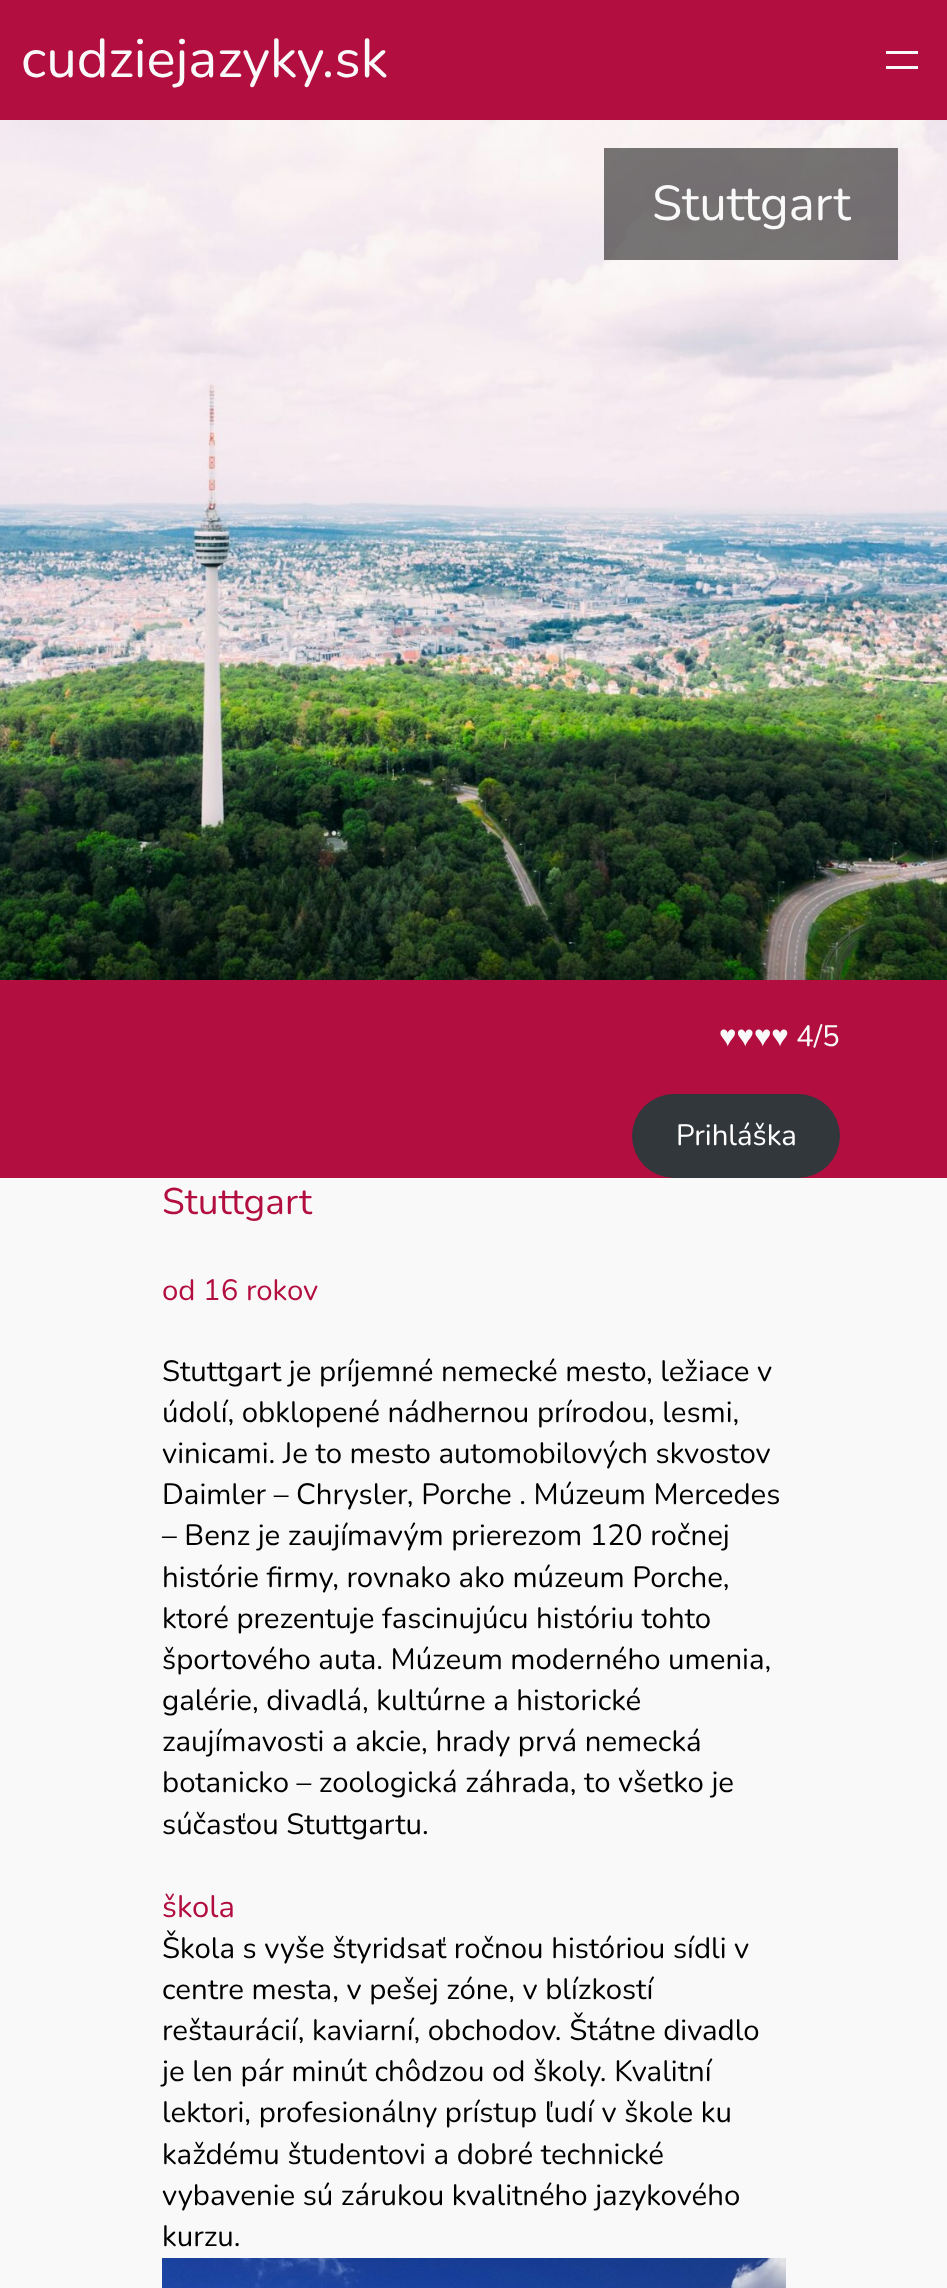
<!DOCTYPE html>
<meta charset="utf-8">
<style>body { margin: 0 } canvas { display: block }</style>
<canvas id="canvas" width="947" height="2288"></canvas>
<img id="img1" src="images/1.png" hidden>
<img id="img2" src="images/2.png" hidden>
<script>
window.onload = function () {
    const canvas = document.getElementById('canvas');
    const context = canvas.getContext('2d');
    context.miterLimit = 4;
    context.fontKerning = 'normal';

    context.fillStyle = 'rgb(249, 249, 249)';
    context.fillRect(0, 0, 947, 2288);
    context.fillStyle = 'rgb(179, 14, 64)';
    context.fillRect(0, 0, 947, 120);
    context.fillStyle = 'rgb(249, 249, 249)';
    context.fillRect(886, 51, 32, 3);
    context.fillRect(886, 66, 32, 3);
    context.drawImage(document.getElementById('img1'), 0, 120, 947, 860);
    context.fillStyle = 'rgba(0, 0, 0, 0.53)';
    context.fillRect(604, 148, 294, 112);
    context.fillStyle = 'rgb(179, 14, 64)';
    context.fillRect(0, 980, 947, 198);
    context.fillStyle = 'rgb(50, 55, 60)';
    context.beginPath();
    context.roundRect(632, 1094, 208, 84, 42);
    context.fill();
    context.drawImage(document.getElementById('img2'), 162, 2258, 624, 30);
    context.font = '54.5px Nunito';
    context.fillStyle = 'rgb(249, 249, 249)';
    context.fillText('cudziejazyky.sk', 21, 77);
    context.font = '49px Nunito';
    context.fillText('Stuttgart', 652, 220);
    context.font = '29.4px Liberation Serif';
    context.fillText('♥︎♥︎♥︎♥︎', 719, 1046);
    context.font = '29.4px Nunito';
    context.fillText('4/5', 796, 1046);
    context.fillStyle = 'rgb(255, 255, 255)';
    context.fillText('Prihláška', 676, 1145);
    context.font = '37px Nunito';
    context.fillStyle = 'rgb(179, 14, 64)';
    context.fillText('Stuttgart', 162, 1214);
    context.font = '29.4px Nunito';
    context.fillText('od 16 rokov', 162, 1300);
    context.fillStyle = 'rgb(0, 0, 0)';
    context.fillText('Stuttgart je príjemné nemecké mesto, ležiace v', 162, 1381);
    context.fillText('údolí, obklopené nádhernou prírodou, lesmi,', 162, 1422);
    context.fillText('vinicami. Je to mesto automobilových skvostov', 162, 1463);
    context.fillText('Daimler – Chrysler, Porche . Múzeum Mercedes', 162, 1504);
    context.fillText('– Benz je zaujímavým prierezom 120 ročnej', 162, 1545);
    context.fillText('histórie firmy, rovnako ako múzeum Porche,', 162, 1587);
    context.fillText('ktoré prezentuje fascinujúcu históriu tohto', 162, 1628);
    context.fillText('športového auta. Múzeum moderného umenia,', 162, 1669);
    context.fillText('galérie, divadlá, kultúrne a historické', 162, 1710);
    context.fillText('zaujímavosti a akcie, hrady prvá nemecká', 162, 1751);
    context.fillText('botanicko – zoologická záhrada, to všetko je', 162, 1792);
    context.fillText('súčasťou Stuttgartu.', 162, 1834);
    context.font = '31px Nunito';
    context.fillStyle = 'rgb(179, 14, 64)';
    context.fillText('škola', 162, 1917);
    context.font = '29.4px Nunito';
    context.fillStyle = 'rgb(0, 0, 0)';
    context.fillText('Škola s vyše štyridsať ročnou históriou sídli v', 162, 1958);
    context.fillText('centre mesta, v pešej zóne, v blízkostí', 162, 1999);
    context.fillText('reštaurácií, kaviarní, obchodov. Štátne divadlo', 162, 2040);
    context.fillText('je len pár minút chôdzou od školy. Kvalitní', 162, 2081);
    context.fillText('lektori, profesionálny prístup ľudí v škole ku', 162, 2122);
    context.fillText('každému študentovi a dobré technické', 162, 2164);
    context.fillText('vybavenie sú zárukou kvalitného jazykového', 162, 2205);
    context.fillText('kurzu.', 162, 2246);
};
</script>
